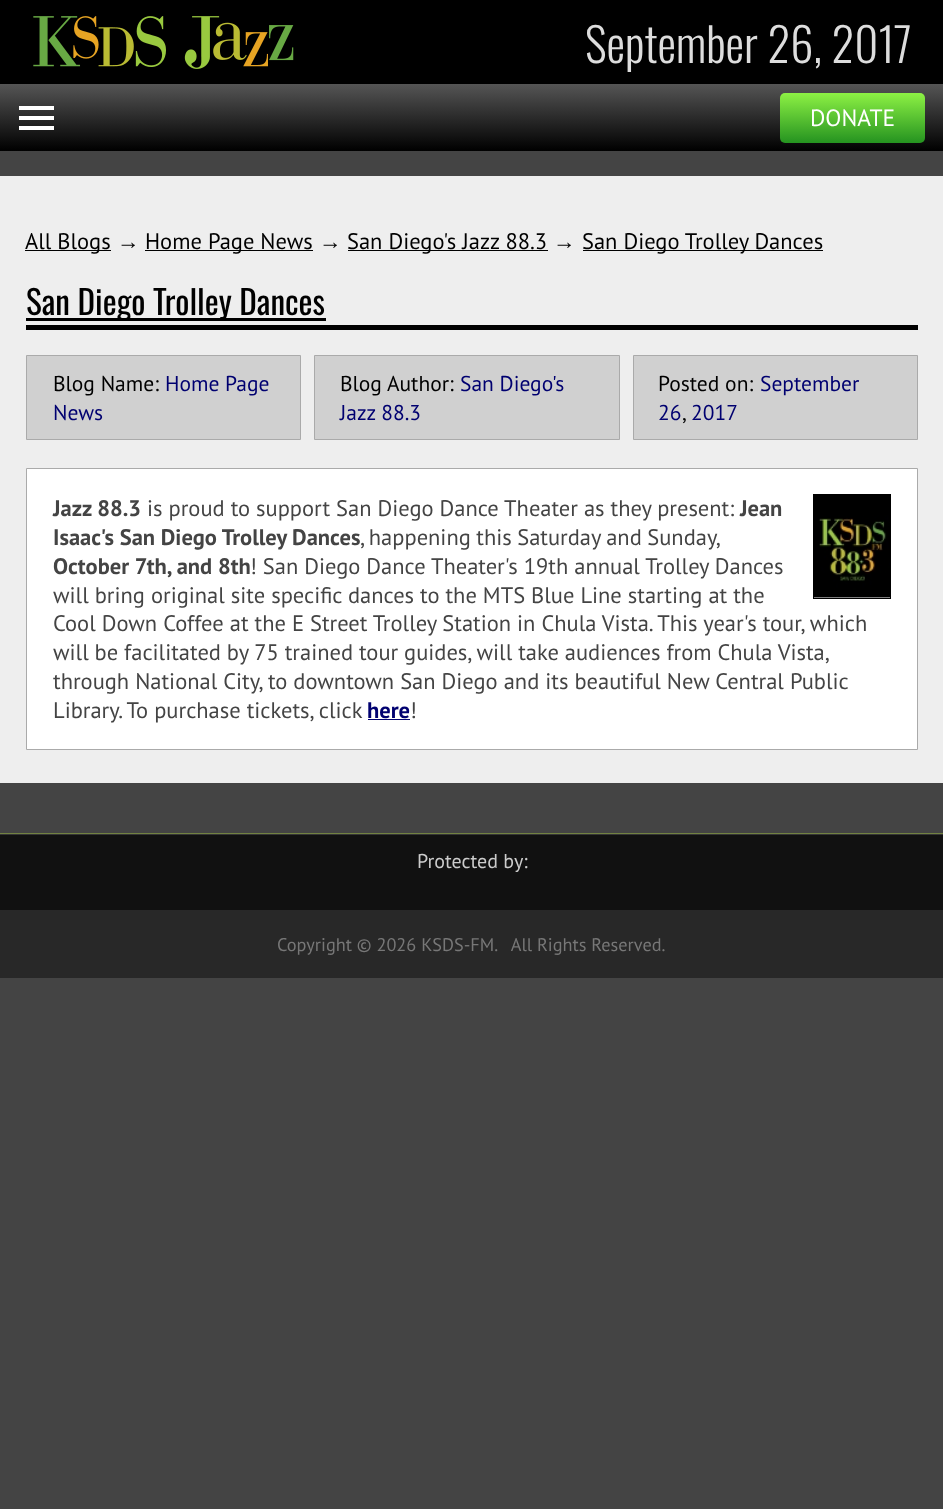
<!DOCTYPE html>
<meta charset="utf-8">
<style>body { margin: 0 } canvas { display: block }</style>
<canvas id="canvas" width="943" height="1509"></canvas>
<img id="img1" src="images/1.png" hidden>
<img id="img2" src="images/2.png" hidden>
<script>
window.onload = function () {
    const canvas = document.getElementById('canvas');
    const context = canvas.getContext('2d');
    context.miterLimit = 4;
    context.fontKerning = 'normal';
    let gradient;

    context.fillStyle = 'rgb(68, 68, 68)';
    context.fillRect(0, 0, 943, 1509);
    context.fillStyle = 'rgb(0, 0, 0)';
    context.fillRect(0, 0, 943, 84);
    context.drawImage(document.getElementById('img1'), 33, 16, 261, 53);
    gradient = context.createLinearGradient(472, 84, 472, 151);
    gradient.addColorStop(0, 'rgb(85, 85, 85)');
    gradient.addColorStop(1, 'rgb(0, 0, 0)');
    context.fillStyle = gradient;
    context.fillRect(0, 84, 943, 67);
    context.fillStyle = 'rgb(255, 255, 255)';
    context.fillRect(19, 106, 35, 4);
    context.fillRect(19, 126, 35, 4);
    context.fillRect(19, 116, 35, 4);
    gradient = context.createLinearGradient(853, 93, 853, 143);
    gradient.addColorStop(0, 'rgb(141, 241, 68)');
    gradient.addColorStop(1, 'rgb(37, 147, 32)');
    context.fillStyle = gradient;
    context.beginPath();
    context.roundRect(780, 93, 145, 50, 5);
    context.fill();
    context.fillStyle = 'rgb(238, 238, 238)';
    context.fillRect(0, 176, 943, 607);
    context.fillStyle = 'rgb(0, 0, 0)';
    context.fillRect(25, 250, 86, 1);
    context.fillRect(145, 250, 168, 1);
    context.fillRect(348, 250, 200, 1);
    context.fillRect(583, 250, 240, 1);
    context.fillRect(26, 325, 892, 5);
    context.fillRect(26, 318, 300, 3);
    context.fillStyle = 'rgb(208, 208, 208)';
    context.beginPath();
    context.rect(26.5, 355.5, 274, 84);
    context.fill();
    context.strokeStyle = 'rgb(170, 170, 170)';
    context.stroke();
    context.beginPath();
    context.rect(314.5, 355.5, 305, 84);
    context.fill();
    context.stroke();
    context.beginPath();
    context.rect(633.5, 355.5, 284, 84);
    context.fill();
    context.stroke();
    context.fillStyle = 'rgb(255, 255, 255)';
    context.beginPath();
    context.rect(26.5, 468.5, 891, 281);
    context.fill();
    context.stroke();
    context.strokeStyle = 'rgb(0, 0, 0)';
    context.strokeRect(813.5, 494.5, 77, 104);
    context.drawImage(document.getElementById('img2'), 814, 495, 76, 103);
    context.fillStyle = 'rgb(0, 0, 112)';
    context.fillRect(368, 719, 42, 1);
    context.fillStyle = 'rgb(17, 17, 17)';
    context.fillRect(0, 835, 943, 75);
    context.fillStyle = 'rgb(114, 130, 66)';
    context.fillRect(0, 833, 943, 1);
    context.fillStyle = 'rgb(54, 54, 54)';
    context.fillRect(0, 834, 943, 1);
    context.fillStyle = 'rgb(40, 40, 40)';
    context.fillRect(0, 910, 943, 68);
    context.font = '300 46.75px Oswald';
    context.fillStyle = 'rgb(221, 221, 221)';
    context.fillText('September 26, 2017', 585, 63);
    context.font = '23.5px PT Sans';
    context.fillStyle = 'rgb(255, 255, 255)';
    context.fillText('DONATE', 810, 126);
    context.font = '22.5px PT Sans';
    context.fillStyle = 'rgb(0, 0, 0)';
    context.fillText('All Blogs', 25, 249);
    context.font = '22.5px Liberation Sans';
    context.fillText('→', 117, 249);
    context.font = '22.5px PT Sans';
    context.fillText('Home Page News', 145, 249);
    context.font = '22.5px Liberation Sans';
    context.fillText('→', 319, 249);
    context.font = '22.5px PT Sans';
    context.fillText('San Diego\'s Jazz 88.3', 347, 249);
    context.font = '22.5px Liberation Sans';
    context.fillText('→', 553, 249);
    context.font = '22.5px PT Sans';
    context.fillText('San Diego Trolley Dances', 582, 249);
    context.font = '33.25px Oswald';
    context.fillText('San Diego Trolley Dances', 26, 315);
    context.font = '21.5px PT Sans';
    context.fillText('Blog Name:', 53, 391);
    context.fillStyle = 'rgb(0, 0, 112)';
    context.fillText('Home Page', 165, 391);
    context.fillText('News', 53, 420);
    context.fillStyle = 'rgb(0, 0, 0)';
    context.fillText('Blog Author:', 340, 391);
    context.fillStyle = 'rgb(0, 0, 112)';
    context.fillText('San Diego\'s', 460, 391);
    context.fillText('Jazz 88.3', 340, 420);
    context.fillStyle = 'rgb(0, 0, 0)';
    context.fillText('Posted on:', 658, 391);
    context.fillStyle = 'rgb(0, 0, 112)';
    context.fillText('September', 760, 391);
    context.fillText('26', 658, 420);
    context.fillStyle = 'rgb(0, 0, 0)';
    context.fillText(',', 682, 420);
    context.fillStyle = 'rgb(0, 0, 112)';
    context.fillText('2017', 691, 420);
    context.font = 'bold 22.5px PT Sans';
    context.fillStyle = 'rgb(68, 68, 68)';
    context.fillText('Jazz 88.3', 53, 516);
    context.font = '22.5px PT Sans';
    context.fillText('is proud to support San Diego Dance Theater as they present:', 147, 516);
    context.font = 'bold 22.5px PT Sans';
    context.fillText('Jean', 740, 516);
    context.fillText('Isaac\'s San Diego Trolley Dances', 53, 545);
    context.wordSpacing = '-0.5px';
    context.font = '22.5px PT Sans';
    context.fillText(', happening this Saturday and Sunday,', 360, 545);
    context.wordSpacing = '0px';
    context.font = 'bold 22.5px PT Sans';
    context.fillText('October 7th, and 8th', 53, 574);
    context.font = '22.5px PT Sans';
    context.fillText('! San Diego Dance Theater\'s 19th annual Trolley Dances', 250, 574);
    context.fillText('will bring original site specific dances to the MTS Blue Line starting at the', 53, 603);
    context.fillText('Cool Down Coffee at the E Street Trolley Station in Chula Vista. This year\'s tour, which', 53, 631);
    context.wordSpacing = '-0.1px';
    context.fillText('will be facilitated by 75 trained tour guides, will take audiences from Chula Vista,', 53, 660);
    context.wordSpacing = '0px';
    context.fillText('through National City, to downtown San Diego and its beautiful New Central Public', 53, 689);
    context.fillText('Library. To purchase tickets, click', 53, 718);
    context.font = 'bold 22.5px PT Sans';
    context.fillStyle = 'rgb(0, 0, 112)';
    context.fillText('here', 367, 718);
    context.font = '22.5px PT Sans';
    context.fillStyle = 'rgb(68, 68, 68)';
    context.fillText('!', 410, 718);
    context.font = '20px PT Sans';
    context.fillStyle = 'rgb(204, 204, 204)';
    context.fillText('Protected by:', 417, 868);
    context.font = '18.3px PT Sans';
    context.fillStyle = 'rgb(119, 119, 119)';
    context.fillText('Copyright © 2026 KSDS-FM.   All Rights Reserved.', 277, 951);
};
</script>
